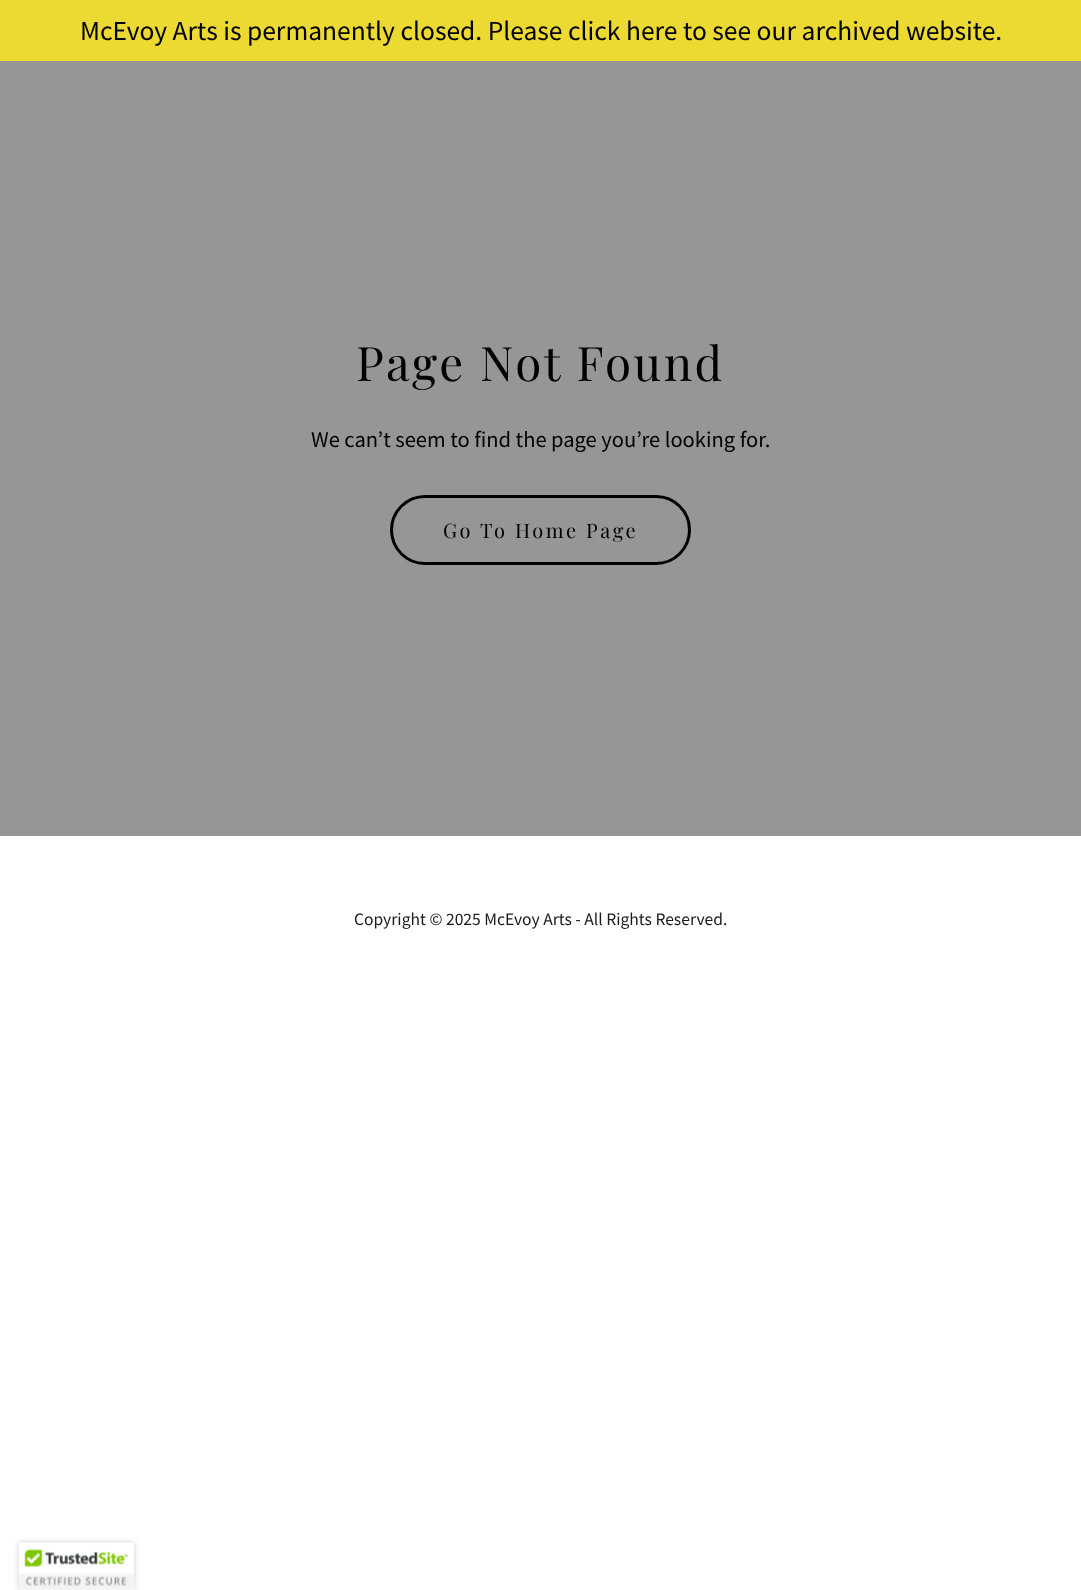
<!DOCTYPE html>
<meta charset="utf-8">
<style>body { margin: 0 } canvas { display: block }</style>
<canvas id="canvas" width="1081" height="1590"></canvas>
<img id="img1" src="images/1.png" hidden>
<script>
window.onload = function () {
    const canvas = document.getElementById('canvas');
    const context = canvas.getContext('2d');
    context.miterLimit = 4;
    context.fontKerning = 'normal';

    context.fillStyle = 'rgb(255, 255, 255)';
    context.fillRect(0, 0, 1081, 1590);
    context.fillStyle = 'rgb(236, 217, 50)';
    context.fillRect(0, 0, 1081, 61);
    context.fillStyle = 'rgb(150, 150, 150)';
    context.fillRect(0, 61, 1081, 775);
    context.beginPath();
    context.roundRect(391.5, 496.5, 298, 67, 33.5);
    context.strokeStyle = 'rgb(0, 0, 0)';
    context.lineWidth = 3;
    context.stroke();
    context.fillStyle = 'rgba(0, 0, 0, 0.2)';
    context.filter = 'blur(3px)';
    context.beginPath();
    context.roundRect(19, 1543, 115, 47, 2.5);
    context.fill();
    context.filter = 'none';
    context.fillStyle = 'rgb(255, 255, 255)';
    context.beginPath();
    context.roundRect(19, 1543, 115, 47, [2.5, 2.5, 0, 0]);
    context.fill();
    context.drawImage(document.getElementById('img1'), 18, 1542, 116, 48);
    context.font = '27.5px Source Sans Pro';
    context.fillStyle = 'rgb(0, 0, 0)';
    context.fillText('McEvoy Arts is permanently closed. Please click here to see our archived website.', 80, 40);
    context.letterSpacing = '2.5px';
    context.font = '47.5px Playfair Display';
    context.fillText('Page Not Found', 356, 381);
    context.letterSpacing = '0px';
    context.font = '22.5px Source Sans Pro';
    context.fillText('We can’t seem to find the page you’re looking for.', 311, 447);
    context.letterSpacing = '2.5px';
    context.font = '20px Playfair Display';
    context.fillText('Go To Home Page', 443, 538);
    context.letterSpacing = '0px';
    context.font = '17.5px Source Sans Pro';
    context.fillStyle = 'rgb(27, 27, 27)';
    context.fillText('Copyright © 2025 McEvoy Arts - All Rights Reserved.', 354, 925);
};
</script>
